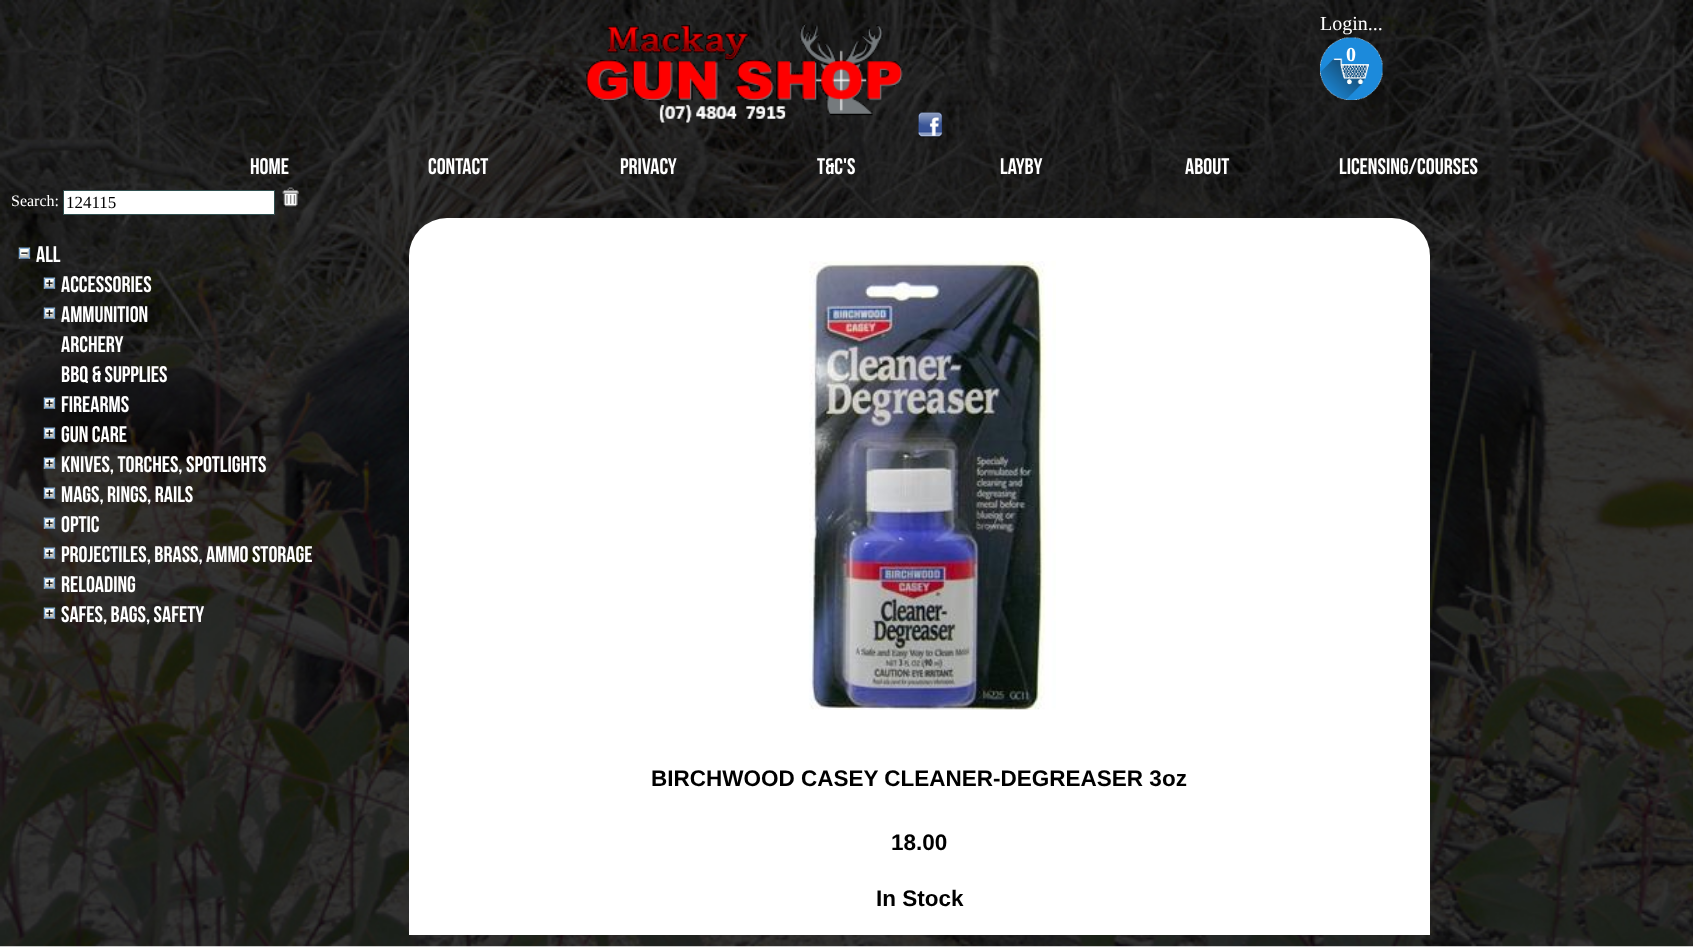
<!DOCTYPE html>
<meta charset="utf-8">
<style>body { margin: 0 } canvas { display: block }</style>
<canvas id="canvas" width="1693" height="948"></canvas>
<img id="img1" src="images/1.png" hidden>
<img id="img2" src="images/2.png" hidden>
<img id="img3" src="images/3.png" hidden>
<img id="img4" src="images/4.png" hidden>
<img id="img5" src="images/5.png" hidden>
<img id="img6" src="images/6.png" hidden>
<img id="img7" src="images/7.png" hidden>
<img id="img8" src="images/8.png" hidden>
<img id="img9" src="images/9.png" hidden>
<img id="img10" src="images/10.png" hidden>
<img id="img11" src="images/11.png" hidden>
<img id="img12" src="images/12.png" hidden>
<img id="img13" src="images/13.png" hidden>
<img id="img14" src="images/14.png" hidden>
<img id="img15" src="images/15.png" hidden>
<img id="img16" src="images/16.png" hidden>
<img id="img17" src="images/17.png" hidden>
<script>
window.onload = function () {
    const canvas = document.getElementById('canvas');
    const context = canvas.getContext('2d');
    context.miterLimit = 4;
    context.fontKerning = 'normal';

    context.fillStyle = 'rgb(255, 255, 255)';
    context.fillRect(0, 0, 1693, 948);
    context.drawImage(document.getElementById('img1'), 0, 0, 1693, 947);
    context.drawImage(document.getElementById('img2'), 586, 24, 317, 99);
    context.drawImage(document.getElementById('img3'), 918, 112, 25, 26);
    context.drawImage(document.getElementById('img4'), 1320, 37, 63, 63);
    context.beginPath();
    context.rect(63.5, 190.5, 211, 24);
    context.fill();
    context.strokeStyle = 'rgb(47, 79, 79)';
    context.stroke();
    context.drawImage(document.getElementById('img5'), 282, 187, 17, 20);
    context.drawImage(document.getElementById('img6'), 18, 247, 13, 12);
    context.drawImage(document.getElementById('img7'), 43, 277, 13, 12);
    context.drawImage(document.getElementById('img8'), 43, 307, 13, 12);
    context.drawImage(document.getElementById('img9'), 43, 397, 13, 12);
    context.drawImage(document.getElementById('img10'), 43, 427, 13, 12);
    context.drawImage(document.getElementById('img11'), 43, 457, 13, 12);
    context.drawImage(document.getElementById('img12'), 43, 487, 13, 12);
    context.drawImage(document.getElementById('img13'), 43, 517, 13, 12);
    context.drawImage(document.getElementById('img14'), 43, 547, 13, 12);
    context.drawImage(document.getElementById('img15'), 43, 577, 13, 12);
    context.drawImage(document.getElementById('img16'), 43, 607, 13, 12);
    context.beginPath();
    context.roundRect(409, 218, 1021, 717, [38, 38, 0, 0]);
    context.fill();
    context.drawImage(document.getElementById('img17'), 808, 260, 248, 450);
    context.font = '20px Liberation Serif';
    context.fillText('Login...', 1320, 30);
    context.font = 'bold 20px Liberation Serif';
    context.fillText('0', 1346, 61);
    context.font = '22.5px Bebas Neue';
    context.fillText('Home', 250, 174);
    context.fillText('Contact', 428, 174);
    context.fillText('Privacy', 620, 174);
    context.fillText('T&C\'s', 817, 174);
    context.fillText('Layby', 1000, 174);
    context.fillText('About', 1185, 174);
    context.fillText('Licensing/Courses', 1339, 174);
    context.font = '16px Liberation Serif';
    context.fillText('Search:', 11, 206);
    context.font = '17px Liberation Serif';
    context.fillStyle = 'rgb(0, 0, 0)';
    context.fillText('124115', 66, 208);
    context.font = '22.5px Bebas Neue';
    context.fillStyle = 'rgb(255, 255, 255)';
    context.fillText('All', 36, 262);
    context.fillText('Accessories', 61, 292);
    context.fillText('Ammunition', 61, 322);
    context.fillText('archery', 61, 352);
    context.fillText('BBQ & SUPPLIES', 61, 382);
    context.fillText('Firearms', 61, 412);
    context.fillText('Gun Care', 61, 442);
    context.fillText('Knives, Torches, Spotlights', 61, 472);
    context.fillText('MAGS, RINGS, RAILS', 61, 502);
    context.fillText('Optic', 61, 532);
    context.fillText('Projectiles, BRASS, AMMO STORAGE', 61, 562);
    context.fillText('Reloading', 61, 592);
    context.fillText('Safes, Bags, Safety', 61, 622);
    context.font = 'bold 22.5px Liberation Sans';
    context.fillStyle = 'rgb(0, 0, 0)';
    context.fillText('BIRCHWOOD CASEY CLEANER-DEGREASER 3oz', 651, 786);
    context.fillText('18.00', 891, 850);
    context.fillText('In Stock', 876, 906);
};
</script>
